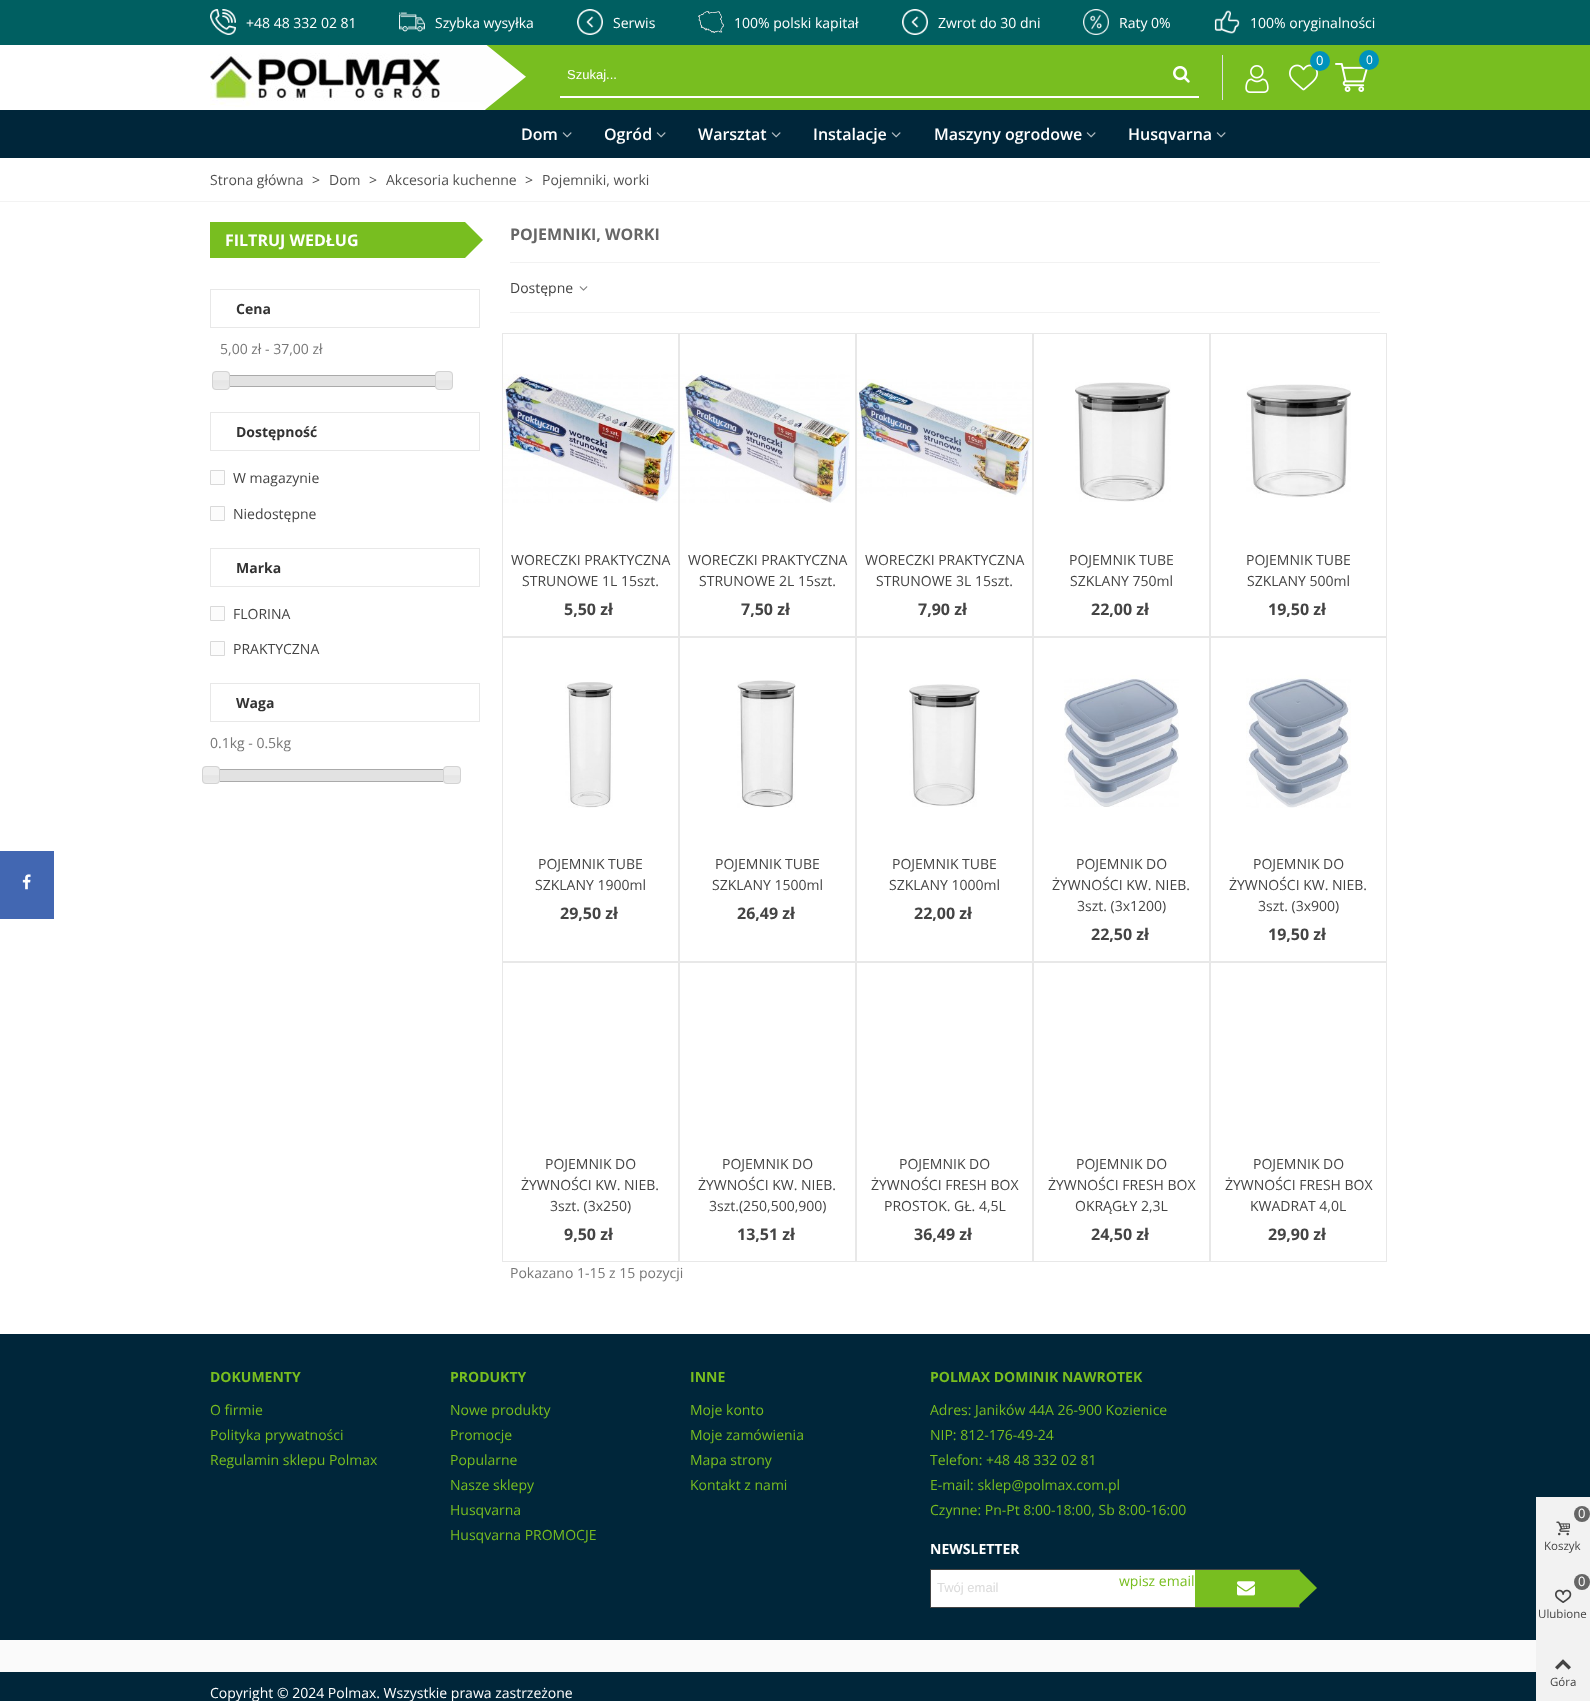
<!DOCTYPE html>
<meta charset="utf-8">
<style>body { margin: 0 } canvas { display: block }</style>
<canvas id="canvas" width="1590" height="1701"></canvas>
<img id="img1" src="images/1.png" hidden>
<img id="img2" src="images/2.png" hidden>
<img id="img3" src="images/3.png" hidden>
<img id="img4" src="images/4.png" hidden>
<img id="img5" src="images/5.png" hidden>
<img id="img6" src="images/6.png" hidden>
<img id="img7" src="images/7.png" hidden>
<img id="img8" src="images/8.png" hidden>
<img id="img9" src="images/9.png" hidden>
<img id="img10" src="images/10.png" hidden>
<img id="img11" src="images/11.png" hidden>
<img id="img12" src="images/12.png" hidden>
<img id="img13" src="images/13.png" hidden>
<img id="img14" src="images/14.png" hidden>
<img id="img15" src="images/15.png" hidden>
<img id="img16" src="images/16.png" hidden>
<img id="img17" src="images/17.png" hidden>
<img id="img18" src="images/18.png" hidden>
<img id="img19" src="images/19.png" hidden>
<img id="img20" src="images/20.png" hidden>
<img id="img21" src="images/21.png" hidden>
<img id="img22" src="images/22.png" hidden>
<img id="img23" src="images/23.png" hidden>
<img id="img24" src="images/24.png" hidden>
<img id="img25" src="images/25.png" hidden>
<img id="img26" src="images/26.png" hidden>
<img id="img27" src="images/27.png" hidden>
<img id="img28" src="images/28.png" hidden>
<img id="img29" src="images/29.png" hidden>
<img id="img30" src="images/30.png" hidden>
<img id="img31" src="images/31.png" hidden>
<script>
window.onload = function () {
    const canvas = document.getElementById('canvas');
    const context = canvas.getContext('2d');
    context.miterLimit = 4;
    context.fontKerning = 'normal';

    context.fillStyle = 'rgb(255, 255, 255)';
    context.fillRect(0, 0, 1590, 1701);
    context.fillStyle = 'rgb(120, 190, 32)';
    context.fillRect(485, 45, 1105, 65);
    context.fillStyle = 'rgb(0, 95, 97)';
    context.fillRect(0, 0, 1590, 45);
    context.drawImage(document.getElementById('img1'), 210, 9, 26, 26);
    context.drawImage(document.getElementById('img2'), 399, 12, 26, 20);
    context.drawImage(document.getElementById('img3'), 577, 9, 26, 26);
    context.drawImage(document.getElementById('img4'), 698, 11, 26, 22);
    context.drawImage(document.getElementById('img3'), 902, 9, 26, 26);
    context.drawImage(document.getElementById('img5'), 1083, 9, 26, 26);
    context.drawImage(document.getElementById('img6'), 1214, 10, 26, 24);
    context.drawImage(document.getElementById('img7'), 210, 45, 316, 65);
    context.fillStyle = 'rgb(221, 224, 226)';
    context.fillRect(1222, 55, 1, 45);
    context.drawImage(document.getElementById('img8'), 1245, 65, 24, 28);
    context.drawImage(document.getElementById('img9'), 1289, 64, 29, 27);
    context.fillStyle = 'rgb(0, 146, 188)';
    context.beginPath();
    context.arc(1320, 61, 10, 0, 2 * Math.PI);
    context.fill();
    context.drawImage(document.getElementById('img10'), 1335, 63, 33, 29);
    context.beginPath();
    context.arc(1369, 60, 10, 0, 2 * Math.PI);
    context.fill();
    context.fillStyle = 'rgb(255, 255, 255)';
    context.fillRect(560, 96, 639, 2);
    context.drawImage(document.getElementById('img11'), 1173, 66, 17, 17);
    context.fillStyle = 'rgb(0, 38, 58)';
    context.fillRect(0, 110, 1590, 48);
    context.drawImage(document.getElementById('img12'), 562, 132, 10, 6);
    context.drawImage(document.getElementById('img12'), 656, 132, 10, 6);
    context.drawImage(document.getElementById('img12'), 771, 132, 10, 6);
    context.drawImage(document.getElementById('img12'), 891, 132, 10, 6);
    context.drawImage(document.getElementById('img12'), 1086, 132, 10, 6);
    context.drawImage(document.getElementById('img12'), 1216, 132, 10, 6);
    context.fillStyle = 'rgb(243, 243, 243)';
    context.fillRect(0, 201, 1590, 1);
    context.fillStyle = 'rgb(120, 190, 32)';
    context.fillRect(210, 222, 255, 36);
    context.beginPath();
    context.moveTo(465, 258);
    context.lineTo(465, 222);
    context.lineTo(483, 240);
    context.closePath();
    context.fill();
    context.strokeStyle = 'rgb(232, 232, 232)';
    context.strokeRect(210.5, 289.5, 269, 38);
    context.strokeStyle = 'rgb(170, 170, 170)';
    context.strokeRect(220.5, 375.5, 224, 11);
    context.drawImage(document.getElementById('img13'), 212, 371, 18, 19);
    context.beginPath();
    context.roundRect(212.5, 371.5, 17, 18, 3.5);
    context.strokeStyle = 'rgb(211, 211, 211)';
    context.stroke();
    context.fillStyle = 'rgb(226, 226, 226)';
    context.fillRect(230, 376, 205, 10);
    context.drawImage(document.getElementById('img13'), 435, 371, 18, 19);
    context.beginPath();
    context.roundRect(435.5, 371.5, 17, 18, 3.5);
    context.stroke();
    context.strokeStyle = 'rgb(232, 232, 232)';
    context.strokeRect(210.5, 412.5, 269, 38);
    context.fillStyle = 'rgb(252, 252, 252)';
    context.beginPath();
    context.rect(210.5, 470.5, 14, 14);
    context.fill();
    context.strokeStyle = 'rgb(217, 217, 217)';
    context.stroke();
    context.beginPath();
    context.rect(210.5, 506.5, 14, 14);
    context.fill();
    context.stroke();
    context.strokeStyle = 'rgb(232, 232, 232)';
    context.strokeRect(210.5, 548.5, 269, 38);
    context.beginPath();
    context.rect(210.5, 606.5, 14, 14);
    context.fill();
    context.strokeStyle = 'rgb(217, 217, 217)';
    context.stroke();
    context.beginPath();
    context.rect(210.5, 641.5, 14, 14);
    context.fill();
    context.stroke();
    context.strokeStyle = 'rgb(232, 232, 232)';
    context.strokeRect(210.5, 683.5, 269, 38);
    context.strokeStyle = 'rgb(170, 170, 170)';
    context.strokeRect(210.5, 769.5, 242, 12);
    context.fillStyle = 'rgb(226, 226, 226)';
    context.fillRect(219, 770, 225, 11);
    context.drawImage(document.getElementById('img14'), 202, 766, 18, 18);
    context.beginPath();
    context.roundRect(202.5, 766.5, 17, 17, 3.5);
    context.strokeStyle = 'rgb(211, 211, 211)';
    context.stroke();
    context.drawImage(document.getElementById('img15'), 443, 766, 18, 18);
    context.beginPath();
    context.roundRect(443.5, 766.5, 17, 17, 3.5);
    context.stroke();
    context.fillStyle = 'rgb(242, 242, 242)';
    context.fillRect(510, 262, 870, 1);
    context.fillRect(510, 312, 870, 1);
    context.drawImage(document.getElementById('img16'), 579, 286, 9, 5);
    context.strokeStyle = 'rgb(232, 232, 232)';
    context.strokeRect(502.5, 333.5, 176, 303);
    context.drawImage(document.getElementById('img17'), 503, 374, 175, 129);
    context.strokeRect(679.5, 333.5, 176, 303);
    context.drawImage(document.getElementById('img18'), 680, 370, 170, 133);
    context.strokeRect(856.5, 333.5, 176, 303);
    context.drawImage(document.getElementById('img19'), 857, 379, 175, 118);
    context.strokeRect(1033.5, 333.5, 176, 303);
    context.drawImage(document.getElementById('img20'), 1075, 382, 96, 120);
    context.strokeRect(1210.5, 333.5, 176, 303);
    context.drawImage(document.getElementById('img21'), 1246, 384, 105, 114);
    context.strokeRect(502.5, 637.5, 176, 324);
    context.drawImage(document.getElementById('img22'), 565, 682, 48, 126);
    context.strokeRect(679.5, 637.5, 176, 324);
    context.drawImage(document.getElementById('img23'), 737, 680, 59, 128);
    context.strokeRect(856.5, 637.5, 176, 324);
    context.drawImage(document.getElementById('img24'), 909, 684, 71, 123);
    context.strokeRect(1033.5, 637.5, 176, 324);
    context.drawImage(document.getElementById('img25'), 1064, 675, 115, 132);
    context.strokeRect(1210.5, 637.5, 176, 324);
    context.drawImage(document.getElementById('img26'), 1246, 675, 105, 133);
    context.strokeRect(502.5, 962.5, 176, 299);
    context.strokeRect(679.5, 962.5, 176, 299);
    context.strokeRect(856.5, 962.5, 176, 299);
    context.strokeRect(1033.5, 962.5, 176, 299);
    context.strokeRect(1210.5, 962.5, 176, 299);
    context.fillStyle = 'rgb(0, 38, 58)';
    context.fillRect(0, 1334, 1590, 306);
    context.fillStyle = 'rgb(255, 255, 255)';
    context.fillRect(931, 1570, 264, 37);
    context.strokeStyle = 'rgb(68, 68, 68)';
    context.strokeRect(930.5, 1569.5, 369, 38);
    context.fillStyle = 'rgb(120, 190, 32)';
    context.fillRect(1195, 1570, 104, 37);
    context.drawImage(document.getElementById('img27'), 1237, 1581, 18, 15);
    context.beginPath();
    context.moveTo(1299, 1605);
    context.lineTo(1299, 1570);
    context.lineTo(1317, 1588);
    context.closePath();
    context.fill();
    context.fillStyle = 'rgb(250, 250, 250)';
    context.fillRect(0, 1640, 1536, 32);
    context.fillStyle = 'rgb(0, 38, 58)';
    context.fillRect(0, 1672, 1536, 29);
    context.fillStyle = 'rgb(66, 103, 178)';
    context.fillRect(0, 851, 54, 68);
    context.drawImage(document.getElementById('img28'), 22, 874, 9, 16);
    context.fillStyle = 'rgb(242, 242, 242)';
    context.fillRect(1536, 1497, 54, 204);
    context.fillStyle = 'rgb(102, 102, 102)';
    context.beginPath();
    context.arc(1582, 1514, 8, 0, 2 * Math.PI);
    context.fill();
    context.drawImage(document.getElementById('img29'), 1556, 1521, 14, 15);
    context.beginPath();
    context.arc(1582, 1582, 8, 0, 2 * Math.PI);
    context.fill();
    context.drawImage(document.getElementById('img30'), 1555, 1589, 17, 14);
    context.drawImage(document.getElementById('img31'), 1555, 1659, 16, 11);
    context.font = '14px Open Sans';
    context.fillStyle = 'rgb(255, 255, 255)';
    context.fillText('+48 48 332 02 81', 246, 28);
    context.fillText('Szybka wysyłka', 435, 28);
    context.fillText('Serwis', 613, 28);
    context.fillText('100% polski kapitał', 734, 28);
    context.fillText('Zwrot do 30 dni', 938, 28);
    context.fillText('Raty 0%', 1119, 28);
    context.fillText('100% oryginalności', 1250, 28);
    context.font = '13px Open Sans';
    context.fillText('0', 1316, 65);
    context.font = '12px Open Sans';
    context.fillText('0', 1366, 64);
    context.font = '13px Liberation Sans';
    context.fillText('Szukaj...', 567, 79);
    context.font = '600 16px Open Sans';
    context.fillText('Dom', 521, 140);
    context.fillText('Ogród', 604, 140);
    context.fillText('Warsztat', 698, 140);
    context.fillText('Instalacje', 813, 140);
    context.fillText('Maszyny ogrodowe', 934, 140);
    context.fillText('Husqvarna', 1128, 140);
    context.font = '14px Open Sans';
    context.fillStyle = 'rgb(81, 81, 81)';
    context.fillText('Strona główna', 210, 185);
    context.fillText('>', 312, 185);
    context.fillText('Dom', 329, 185);
    context.fillText('>', 369, 185);
    context.fillText('Akcesoria kuchenne', 386, 185);
    context.fillText('>', 525, 185);
    context.fillText('Pojemniki, worki', 542, 185);
    context.font = 'bold 16px Open Sans';
    context.fillStyle = 'rgb(255, 255, 255)';
    context.fillText('FILTRUJ WEDŁUG', 225, 246);
    context.font = 'bold 14px Open Sans';
    context.fillStyle = 'rgb(51, 51, 51)';
    context.fillText('Cena', 236, 314);
    context.font = '14px Open Sans';
    context.fillStyle = 'rgb(119, 119, 119)';
    context.fillText('5,00 zł - 37,00 zł', 220, 354);
    context.font = 'bold 14px Open Sans';
    context.fillStyle = 'rgb(51, 51, 51)';
    context.fillText('Dostępność', 236, 437);
    context.font = '14px Open Sans';
    context.fillStyle = 'rgb(68, 68, 68)';
    context.fillText('W magazynie', 233, 483);
    context.fillText('Niedostępne', 233, 519);
    context.font = 'bold 14px Open Sans';
    context.fillStyle = 'rgb(51, 51, 51)';
    context.fillText('Marka', 236, 573);
    context.font = '14px Open Sans';
    context.fillStyle = 'rgb(68, 68, 68)';
    context.fillText('FLORINA', 233, 619);
    context.fillText('PRAKTYCZNA', 233, 654);
    context.font = 'bold 14px Open Sans';
    context.fillStyle = 'rgb(51, 51, 51)';
    context.fillText('Waga', 236, 708);
    context.font = '14px Open Sans';
    context.fillStyle = 'rgb(119, 119, 119)';
    context.fillText('0.1kg - 0.5kg', 210, 748);
    context.font = 'bold 16px Open Sans';
    context.fillStyle = 'rgb(102, 102, 102)';
    context.fillText('POJEMNIKI, WORKI', 510, 240);
    context.font = '14px Open Sans';
    context.fillStyle = 'rgb(68, 68, 68)';
    context.fillText('Dostępne', 510, 293);
    context.fillText('WORECZKI PRAKTYCZNA', 511, 565);
    context.fillText('STRUNOWE 1L 15szt.', 522, 586);
    context.font = 'bold 16px Open Sans';
    context.fillText('5,50 zł', 564, 615);
    context.font = '14px Open Sans';
    context.fillText('WORECZKI PRAKTYCZNA', 688, 565);
    context.fillText('STRUNOWE 2L 15szt.', 699, 586);
    context.font = 'bold 16px Open Sans';
    context.fillText('7,50 zł', 741, 615);
    context.font = '14px Open Sans';
    context.fillText('WORECZKI PRAKTYCZNA', 865, 565);
    context.fillText('STRUNOWE 3L 15szt.', 876, 586);
    context.font = 'bold 16px Open Sans';
    context.fillText('7,90 zł', 918, 615);
    context.font = '14px Open Sans';
    context.fillText('POJEMNIK TUBE', 1069, 565);
    context.fillText('SZKLANY 750ml', 1070, 586);
    context.font = 'bold 16px Open Sans';
    context.fillText('22,00 zł', 1091, 615);
    context.font = '14px Open Sans';
    context.fillText('POJEMNIK TUBE', 1246, 565);
    context.fillText('SZKLANY 500ml', 1247, 586);
    context.font = 'bold 16px Open Sans';
    context.fillText('19,50 zł', 1268, 615);
    context.font = '14px Open Sans';
    context.fillText('POJEMNIK TUBE', 538, 869);
    context.fillText('SZKLANY 1900ml', 535, 890);
    context.font = 'bold 16px Open Sans';
    context.fillText('29,50 zł', 560, 919);
    context.font = '14px Open Sans';
    context.fillText('POJEMNIK TUBE', 715, 869);
    context.fillText('SZKLANY 1500ml', 712, 890);
    context.font = 'bold 16px Open Sans';
    context.fillText('26,49 zł', 737, 919);
    context.font = '14px Open Sans';
    context.fillText('POJEMNIK TUBE', 892, 869);
    context.fillText('SZKLANY 1000ml', 889, 890);
    context.font = 'bold 16px Open Sans';
    context.fillText('22,00 zł', 914, 919);
    context.font = '14px Open Sans';
    context.fillText('POJEMNIK DO', 1076, 869);
    context.fillText('ŻYWNOŚCI KW. NIEB.', 1052, 890);
    context.fillText('3szt. (3x1200)', 1077, 911);
    context.font = 'bold 16px Open Sans';
    context.fillText('22,50 zł', 1091, 940);
    context.font = '14px Open Sans';
    context.fillText('POJEMNIK DO', 1253, 869);
    context.fillText('ŻYWNOŚCI KW. NIEB.', 1229, 890);
    context.fillText('3szt. (3x900)', 1258, 911);
    context.font = 'bold 16px Open Sans';
    context.fillText('19,50 zł', 1268, 940);
    context.font = '14px Open Sans';
    context.fillText('POJEMNIK DO', 545, 1169);
    context.fillText('ŻYWNOŚCI KW. NIEB.', 521, 1190);
    context.fillText('3szt. (3x250)', 550, 1211);
    context.font = 'bold 16px Open Sans';
    context.fillText('9,50 zł', 564, 1240);
    context.font = '14px Open Sans';
    context.fillText('POJEMNIK DO', 722, 1169);
    context.fillText('ŻYWNOŚCI KW. NIEB.', 698, 1190);
    context.fillText('3szt.(250,500,900)', 709, 1211);
    context.font = 'bold 16px Open Sans';
    context.fillText('13,51 zł', 737, 1240);
    context.font = '14px Open Sans';
    context.fillText('POJEMNIK DO', 899, 1169);
    context.fillText('ŻYWNOŚCI FRESH BOX', 871, 1190);
    context.fillText('PROSTOK. GŁ. 4,5L', 884, 1211);
    context.font = 'bold 16px Open Sans';
    context.fillText('36,49 zł', 914, 1240);
    context.font = '14px Open Sans';
    context.fillText('POJEMNIK DO', 1076, 1169);
    context.fillText('ŻYWNOŚCI FRESH BOX', 1048, 1190);
    context.fillText('OKRĄGŁY 2,3L', 1075, 1211);
    context.font = 'bold 16px Open Sans';
    context.fillText('24,50 zł', 1091, 1240);
    context.font = '14px Open Sans';
    context.fillText('POJEMNIK DO', 1253, 1169);
    context.fillText('ŻYWNOŚCI FRESH BOX', 1225, 1190);
    context.fillText('KWADRAT 4,0L', 1250, 1211);
    context.font = 'bold 16px Open Sans';
    context.fillText('29,90 zł', 1268, 1240);
    context.font = '14px Open Sans';
    context.fillStyle = 'rgb(119, 119, 119)';
    context.fillText('Pokazano 1-15 z 15 pozycji', 510, 1278);
    context.font = 'bold 14px Open Sans';
    context.fillStyle = 'rgb(120, 190, 32)';
    context.fillText('DOKUMENTY', 210, 1382);
    context.font = '14px Open Sans';
    context.fillText('O firmie', 210, 1415);
    context.fillText('Polityka prywatności', 210, 1440);
    context.fillText('Regulamin sklepu Polmax', 210, 1465);
    context.font = 'bold 14px Open Sans';
    context.fillText('PRODUKTY', 450, 1382);
    context.font = '14px Open Sans';
    context.fillText('Nowe produkty', 450, 1415);
    context.fillText('Promocje', 450, 1440);
    context.fillText('Popularne', 450, 1465);
    context.fillText('Nasze sklepy', 450, 1490);
    context.fillText('Husqvarna', 450, 1515);
    context.fillText('Husqvarna PROMOCJE', 450, 1540);
    context.font = 'bold 14px Open Sans';
    context.fillText('INNE', 690, 1382);
    context.font = '14px Open Sans';
    context.fillText('Moje konto', 690, 1415);
    context.fillText('Moje zamówienia', 690, 1440);
    context.fillText('Mapa strony', 690, 1465);
    context.fillText('Kontakt z nami', 690, 1490);
    context.font = 'bold 14px Open Sans';
    context.fillText('POLMAX DOMINIK NAWROTEK', 930, 1382);
    context.font = '14px Open Sans';
    context.fillText('Adres: Janików 44A 26-900 Kozienice', 930, 1415);
    context.fillText('NIP: 812-176-49-24', 930, 1440);
    context.fillText('Telefon: +48 48 332 02 81', 930, 1465);
    context.fillText('E-mail: sklep@polmax.com.pl', 930, 1490);
    context.fillText('Czynne: Pn-Pt 8:00-18:00, Sb 8:00-16:00', 930, 1515);
    context.font = 'bold 14px Open Sans';
    context.fillStyle = 'rgb(255, 255, 255)';
    context.fillText('NEWSLETTER', 930, 1554);
    context.font = '13px Liberation Sans';
    context.fillStyle = 'rgb(218, 218, 218)';
    context.fillText('Twój email', 937, 1592);
    context.font = '14px Open Sans';
    context.fillStyle = 'rgb(120, 190, 32)';
    context.fillText('wpisz email', 1119, 1586);
    context.fillStyle = 'rgb(255, 255, 255)';
    context.fillText('Copyright © 2024 Polmax. Wszystkie prawa zastrzeżone', 210, 1698);
    context.font = '13px Open Sans';
    context.fillText('0', 1578, 1518);
    context.font = '11.5px Open Sans';
    context.fillStyle = 'rgb(68, 68, 68)';
    context.fillText('Koszyk', 1544, 1550);
    context.font = '13px Open Sans';
    context.fillStyle = 'rgb(255, 255, 255)';
    context.fillText('0', 1578, 1586);
    context.font = '11.5px Open Sans';
    context.fillStyle = 'rgb(68, 68, 68)';
    context.fillText('Ulubione', 1538, 1618);
    context.fillText('Góra', 1550, 1686);
};
</script>
